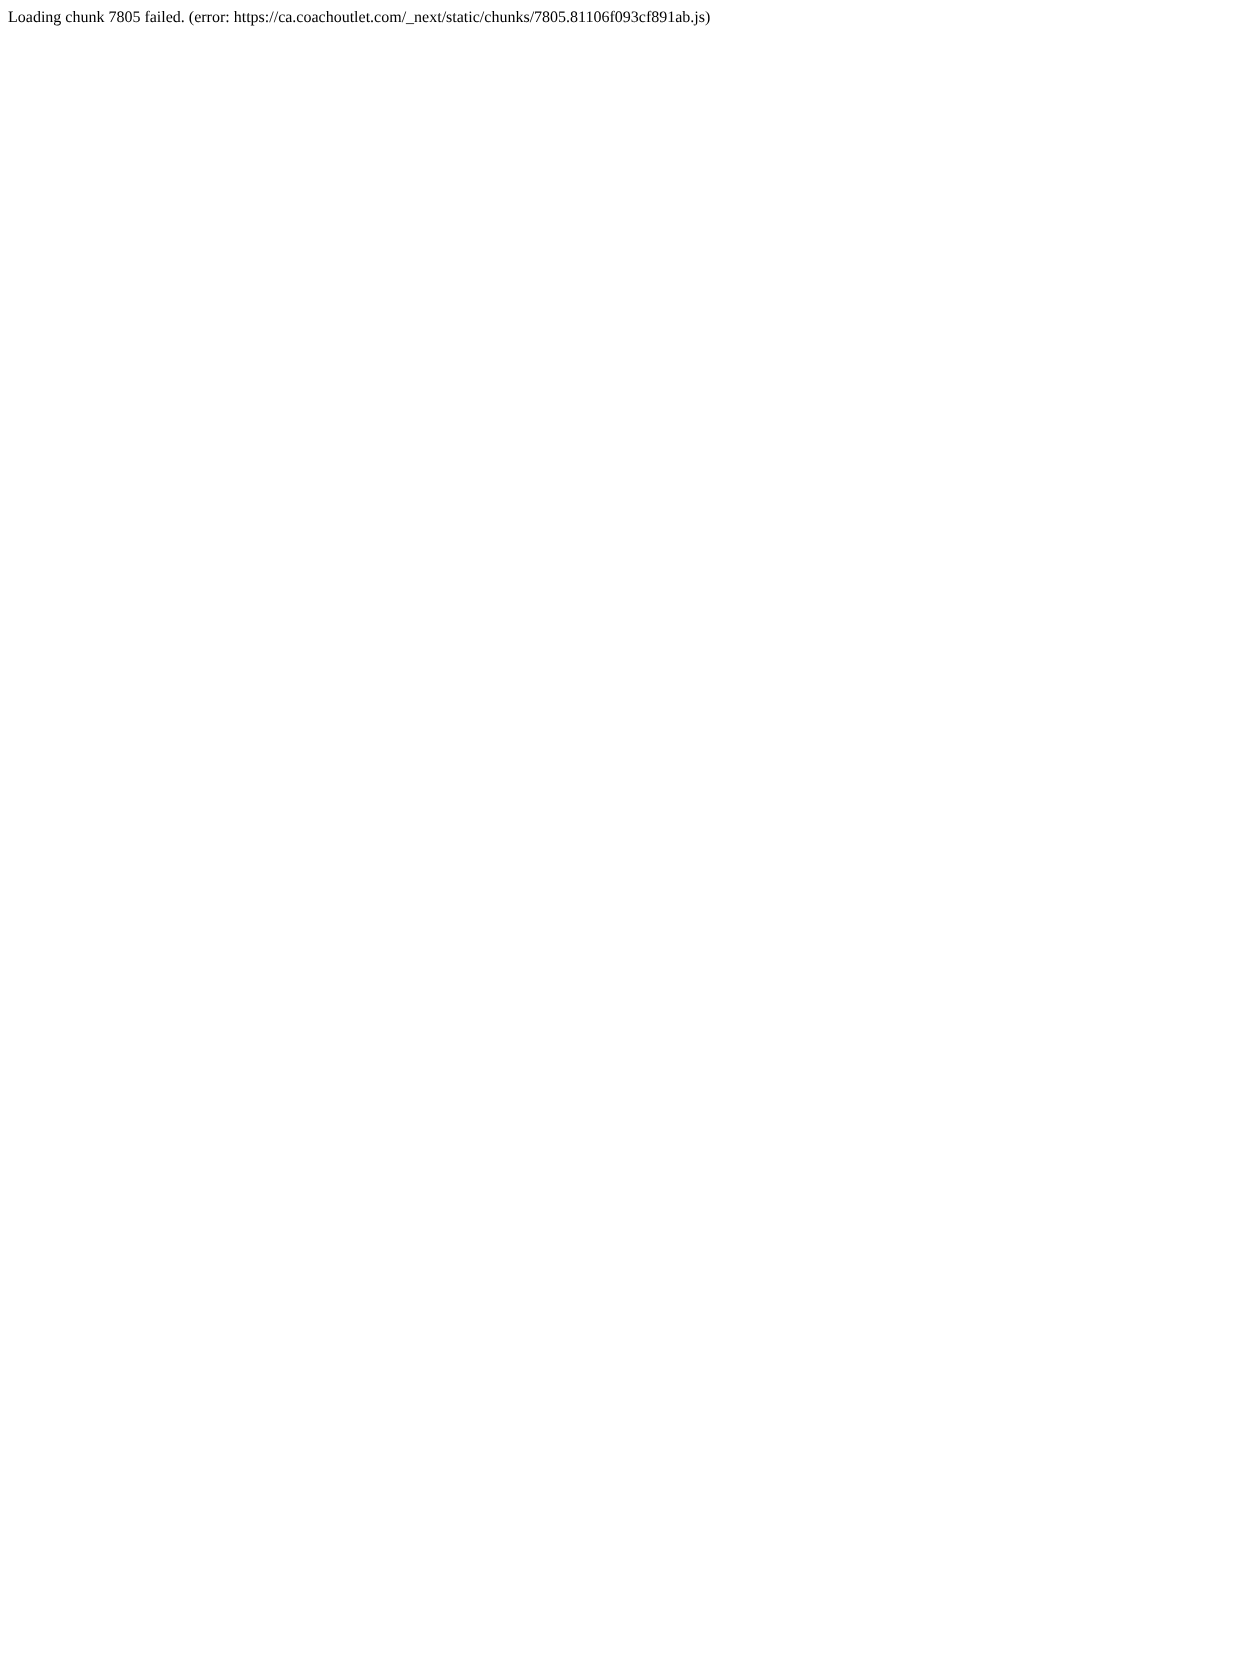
<!DOCTYPE html>
<meta charset="utf-8">
<style>body { margin: 0 } canvas { display: block }</style>
<canvas id="canvas" width="1244" height="1657"></canvas>
<script>
window.onload = function () {
    const canvas = document.getElementById('canvas');
    const context = canvas.getContext('2d');
    context.miterLimit = 4;
    context.fontKerning = 'normal';

    context.fillStyle = 'rgb(255, 255, 255)';
    context.fillRect(0, 0, 1244, 1657);
    context.font = '16px Liberation Serif';
    context.fillStyle = 'rgb(0, 0, 0)';
    context.fillText('Loading chunk 7805 failed. (error: https://ca.coachoutlet.com/_next/static/chunks/7805.81106f093cf891ab.js)', 8, 22);
};
</script>
